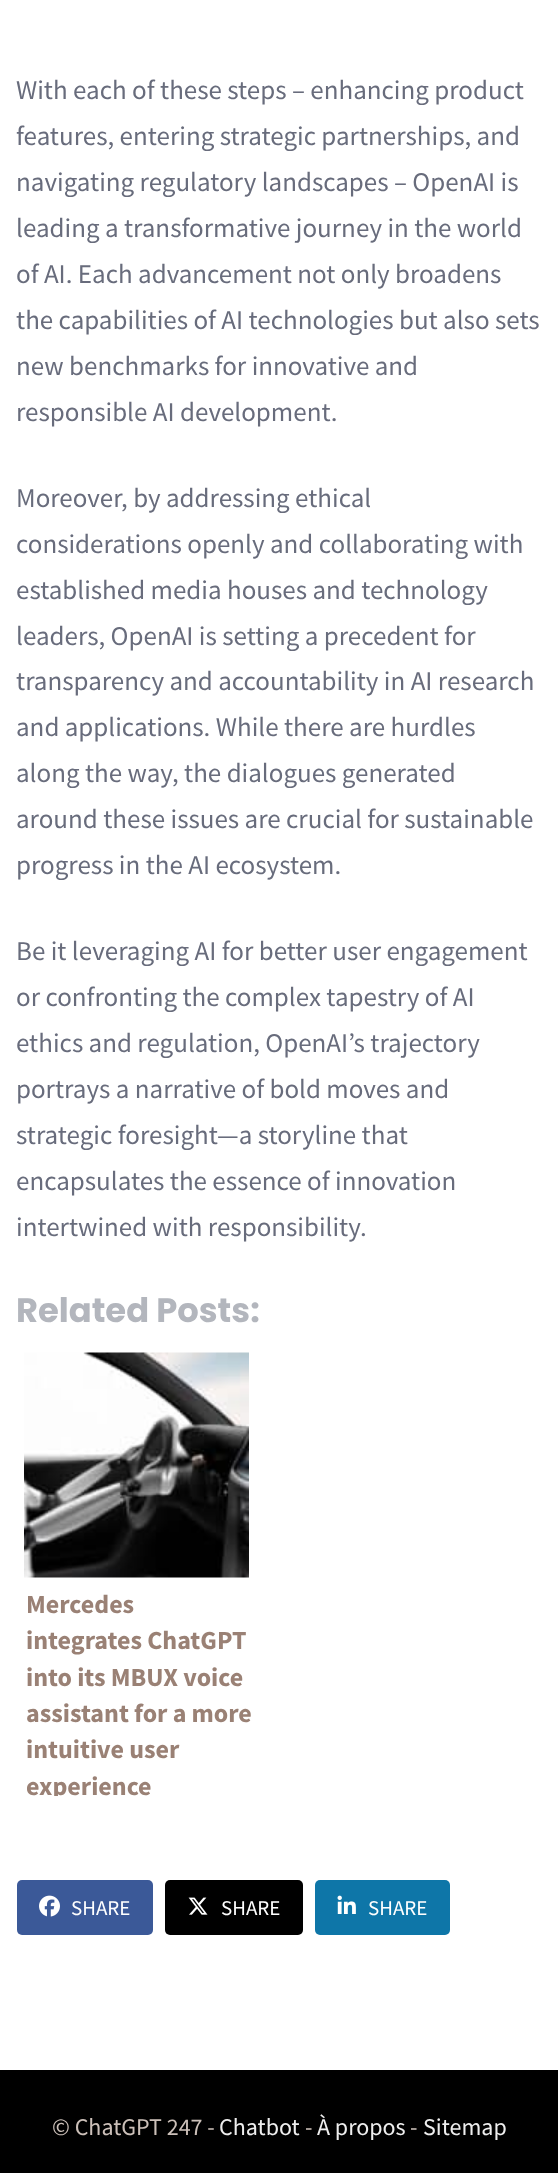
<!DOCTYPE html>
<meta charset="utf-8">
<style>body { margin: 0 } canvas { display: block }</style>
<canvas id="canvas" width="558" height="2173"></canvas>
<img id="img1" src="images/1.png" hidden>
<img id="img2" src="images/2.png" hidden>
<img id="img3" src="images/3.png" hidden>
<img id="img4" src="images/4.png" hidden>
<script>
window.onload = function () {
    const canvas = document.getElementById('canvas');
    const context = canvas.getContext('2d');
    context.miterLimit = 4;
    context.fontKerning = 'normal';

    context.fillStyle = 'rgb(255, 255, 255)';
    context.fillRect(0, 0, 558, 2173);
    context.drawImage(document.getElementById('img1'), 24, 1352, 225, 226);
    context.fillStyle = 'rgb(59, 89, 152)';
    context.beginPath();
    context.roundRect(17, 1880, 136, 55, 5);
    context.fill();
    context.drawImage(document.getElementById('img2'), 39, 1895, 21, 22);
    context.fillStyle = 'rgb(0, 0, 0)';
    context.beginPath();
    context.roundRect(165, 1880, 138, 55, 5);
    context.fill();
    context.drawImage(document.getElementById('img3'), 188, 1897, 20, 18);
    context.fillStyle = 'rgb(14, 118, 168)';
    context.beginPath();
    context.roundRect(315, 1880, 135, 55, 5);
    context.fill();
    context.drawImage(document.getElementById('img4'), 337, 1895, 19, 19);
    context.fillStyle = 'rgb(0, 0, 0)';
    context.fillRect(0, 2070, 558, 103);
    context.font = '27px Source Sans Pro';
    context.fillStyle = 'rgb(104, 108, 124)';
    context.fillText('With each of these steps – enhancing product', 16, 99);
    context.fillText('features, entering strategic partnerships, and', 16, 145);
    context.fillText('navigating regulatory landscapes – OpenAI is', 16, 191);
    context.fillText('leading a transformative journey in the world', 16, 237);
    context.fillText('of AI. Each advancement not only broadens', 16, 283);
    context.fillText('the capabilities of AI technologies but also sets', 16, 329);
    context.fillText('new benchmarks for innovative and', 16, 375);
    context.fillText('responsible AI development.', 16, 421);
    context.fillText('Moreover, by addressing ethical', 16, 507);
    context.fillText('considerations openly and collaborating with', 16, 553);
    context.fillText('established media houses and technology', 16, 599);
    context.fillText('leaders, OpenAI is setting a precedent for', 16, 645);
    context.fillText('transparency and accountability in AI research', 16, 690);
    context.fillText('and applications. While there are hurdles', 16, 736);
    context.fillText('along the way, the dialogues generated', 16, 782);
    context.fillText('around these issues are crucial for sustainable', 16, 828);
    context.fillText('progress in the AI ecosystem.', 16, 874);
    context.fillText('Be it leveraging AI for better user engagement', 16, 960);
    context.fillText('or confronting the complex tapestry of AI', 16, 1006);
    context.fillText('ethics and regulation, OpenAI’s trajectory', 16, 1052);
    context.fillText('portrays a narrative of bold moves and', 16, 1098);
    context.fillText('strategic foresight—a storyline that', 16, 1144);
    context.fillText('encapsulates the essence of innovation', 16, 1190);
    context.fillText('intertwined with responsibility.', 16, 1236);
    context.font = 'bold 33.75px Poppins';
    context.fillStyle = 'rgb(179, 182, 189)';
    context.fillText('Related Posts:', 16, 1322);
    context.font = 'bold 26px Source Sans Pro';
    context.fillStyle = 'rgb(154, 129, 117)';
    context.fillText('Mercedes', 26, 1613);
    context.fillText('integrates ChatGPT', 26, 1649);
    context.fillText('into its MBUX voice', 26, 1686);
    context.fillText('assistant for a more', 26, 1722);
    context.fillText('intuitive user', 26, 1758);
    context.save();
    context.beginPath();
    context.rect(27, 1586, 225, 210);
    context.clip();
    context.fillText('experience', 26, 1795);
    context.restore();
    context.font = '21px Source Sans Pro';
    context.fillStyle = 'rgb(255, 255, 255)';
    context.fillText('SHARE', 71, 1915);
    context.fillText('SHARE', 221, 1915);
    context.fillText('SHARE', 368, 1915);
    context.font = '24px Source Sans Pro';
    context.fillStyle = 'rgb(204, 192, 185)';
    context.fillText('© ChatGPT 247 -', 52, 2135);
    context.fillStyle = 'rgb(238, 238, 238)';
    context.fillText('Chatbot', 219, 2135);
    context.fillStyle = 'rgb(204, 192, 185)';
    context.fillText('-', 305, 2135);
    context.fillStyle = 'rgb(238, 238, 238)';
    context.fillText('À propos', 317, 2135);
    context.fillStyle = 'rgb(204, 192, 185)';
    context.fillText('-', 410, 2135);
    context.fillStyle = 'rgb(238, 238, 238)';
    context.fillText('Sitemap', 423, 2135);
};
</script>
